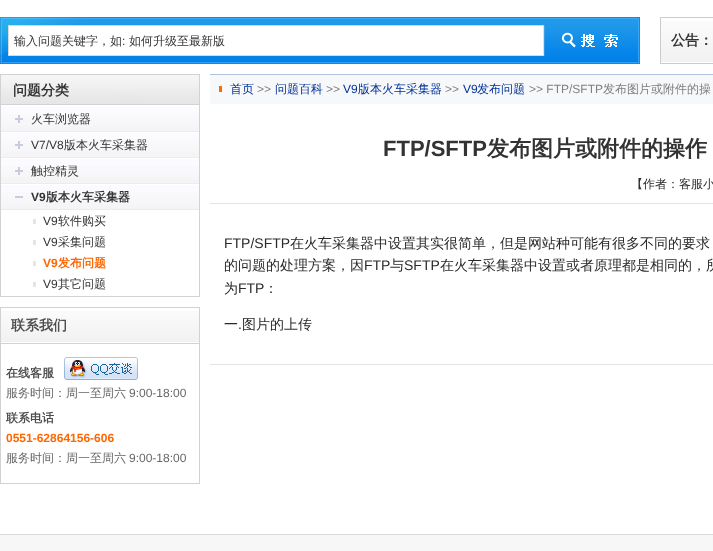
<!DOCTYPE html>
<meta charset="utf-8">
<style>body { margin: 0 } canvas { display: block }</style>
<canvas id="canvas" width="713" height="551"></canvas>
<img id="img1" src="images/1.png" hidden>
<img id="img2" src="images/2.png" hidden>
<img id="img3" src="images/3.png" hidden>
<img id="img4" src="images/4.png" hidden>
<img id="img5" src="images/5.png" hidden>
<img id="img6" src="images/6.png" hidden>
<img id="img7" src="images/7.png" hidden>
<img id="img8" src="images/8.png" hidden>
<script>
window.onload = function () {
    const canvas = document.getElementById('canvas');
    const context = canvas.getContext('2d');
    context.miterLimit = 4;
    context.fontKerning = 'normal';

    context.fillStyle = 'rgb(255, 255, 255)';
    context.fillRect(0, 0, 713, 551);
    context.drawImage(document.getElementById('img1'), 0, 17, 544, 47);
    context.drawImage(document.getElementById('img2'), 544, 17, 96, 47);
    context.drawImage(document.getElementById('img3'), 661, 21, 52, 41);
    context.strokeStyle = 'rgb(204, 204, 204)';
    context.strokeRect(660.5, 17.5, 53, 46);
    context.strokeStyle = 'rgb(210, 210, 210)';
    context.strokeRect(0.5, 74.5, 199, 222);
    context.drawImage(document.getElementById('img4'), 1, 75, 198, 30);
    context.drawImage(document.getElementById('img5'), 1, 107, 198, 25);
    context.drawImage(document.getElementById('img5'), 1, 133, 198, 25);
    context.drawImage(document.getElementById('img5'), 1, 159, 198, 25);
    context.drawImage(document.getElementById('img6'), 1, 185, 198, 25);
    context.fillStyle = 'rgb(229, 229, 229)';
    context.fillRect(33, 219, 3, 5);
    context.fillRect(33, 240, 3, 5);
    context.fillRect(33, 261, 3, 5);
    context.fillRect(33, 282, 3, 5);
    context.strokeRect(0.5, 307.5, 199, 176);
    context.drawImage(document.getElementById('img7'), 1, 311, 198, 31);
    context.fillStyle = 'rgb(210, 210, 210)';
    context.fillRect(1, 343, 198, 1);
    context.drawImage(document.getElementById('img8'), 64, 357, 74, 23);
    context.fillStyle = 'rgb(247, 248, 250)';
    context.fillRect(210, 75, 503, 29);
    context.fillStyle = 'rgb(246, 111, 6)';
    context.fillRect(219, 86, 3, 6);
    context.fillStyle = 'rgb(177, 192, 223)';
    context.fillRect(210, 74, 503, 1);
    context.fillStyle = 'rgb(225, 228, 230)';
    context.fillRect(210, 203, 503, 1);
    context.fillRect(210, 364, 503, 1);
    context.fillStyle = 'rgb(247, 247, 247)';
    context.fillRect(0, 535, 713, 16);
    context.fillStyle = 'rgb(217, 217, 217)';
    context.fillRect(0, 534, 713, 1);
    context.font = '500 12px WenQuanYi Zen Hei';
    context.fillStyle = 'rgb(51, 51, 51)';
    context.fillText('输入问题关键字，如', 14, 45);
    context.font = '12px Liberation Sans';
    context.fillText(':', 122, 45);
    context.font = '500 12px WenQuanYi Zen Hei';
    context.fillText('如何升级至最新版', 129, 45);
    context.font = 'bold 14px WenQuanYi Zen Hei';
    context.fillText('公告：', 671, 45);
    context.fillText('问题分类', 13, 95);
    context.font = '500 12px WenQuanYi Zen Hei';
    context.fillText('火车浏览器', 31, 123);
    context.font = '12px Liberation Sans';
    context.fillText('V7/V8', 31, 149);
    context.font = '500 12px WenQuanYi Zen Hei';
    context.fillText('版本火车采集器', 64, 149);
    context.fillText('触控精灵', 31, 175);
    context.font = 'bold 12px Liberation Sans';
    context.fillText('V9', 31, 201);
    context.font = 'bold 12px WenQuanYi Zen Hei';
    context.fillText('版本火车采集器', 46, 201);
    context.font = '12px Liberation Sans';
    context.fillText('V9', 43, 225);
    context.font = '500 12px WenQuanYi Zen Hei';
    context.fillText('软件购买', 58, 225);
    context.font = '12px Liberation Sans';
    context.fillText('V9', 43, 246);
    context.font = '500 12px WenQuanYi Zen Hei';
    context.fillText('采集问题', 58, 246);
    context.font = 'bold 12px Liberation Sans';
    context.fillStyle = 'rgb(255, 102, 0)';
    context.fillText('V9', 43, 267);
    context.font = 'bold 12px WenQuanYi Zen Hei';
    context.fillText('发布问题', 58, 267);
    context.font = '12px Liberation Sans';
    context.fillStyle = 'rgb(51, 51, 51)';
    context.fillText('V9', 43, 288);
    context.font = '500 12px WenQuanYi Zen Hei';
    context.fillText('其它问题', 58, 288);
    context.font = 'bold 14px WenQuanYi Zen Hei';
    context.fillStyle = 'rgb(77, 77, 77)';
    context.fillText('联系我们', 11, 330);
    context.font = 'bold 12px WenQuanYi Zen Hei';
    context.fillText('在线客服', 6, 377);
    context.font = '500 12px WenQuanYi Zen Hei';
    context.fillStyle = 'rgb(102, 102, 102)';
    context.fillText('服务时间：周一至周六', 6, 397);
    context.font = '12px Liberation Sans';
    context.fillText('9:00-18:00', 129, 397);
    context.font = 'bold 12px WenQuanYi Zen Hei';
    context.fillStyle = 'rgb(77, 77, 77)';
    context.fillText('联系电话', 6, 422);
    context.font = 'bold 12px Liberation Sans';
    context.fillStyle = 'rgb(255, 102, 0)';
    context.fillText('0551-62864156-606', 6, 442);
    context.font = '500 12px WenQuanYi Zen Hei';
    context.fillStyle = 'rgb(102, 102, 102)';
    context.fillText('服务时间：周一至周六', 6, 462);
    context.font = '12px Liberation Sans';
    context.fillText('9:00-18:00', 129, 462);
    context.font = '500 12px WenQuanYi Zen Hei';
    context.fillStyle = 'rgb(0, 51, 153)';
    context.fillText('首页', 230, 93);
    context.font = '12px Liberation Sans';
    context.fillStyle = 'rgb(127, 127, 127)';
    context.fillText('>>', 257, 93);
    context.font = '500 12px WenQuanYi Zen Hei';
    context.fillStyle = 'rgb(0, 51, 153)';
    context.fillText('问题百科', 275, 93);
    context.font = '12px Liberation Sans';
    context.fillStyle = 'rgb(127, 127, 127)';
    context.fillText('>>', 326, 93);
    context.fillStyle = 'rgb(0, 51, 153)';
    context.fillText('V9', 343, 93);
    context.font = '500 12px WenQuanYi Zen Hei';
    context.fillText('版本火车采集器', 358, 93);
    context.font = '12px Liberation Sans';
    context.fillStyle = 'rgb(127, 127, 127)';
    context.fillText('>>', 445, 93);
    context.fillStyle = 'rgb(0, 51, 153)';
    context.fillText('V9', 463, 93);
    context.font = '500 12px WenQuanYi Zen Hei';
    context.fillText('发布问题', 477, 93);
    context.font = '12px Liberation Sans';
    context.fillStyle = 'rgb(127, 127, 127)';
    context.fillText('>> FTP/SFTP', 529, 93);
    context.font = '500 12px WenQuanYi Zen Hei';
    context.fillText('发布图片或附件的操', 603, 93);
    context.font = 'bold 22px Liberation Sans';
    context.fillStyle = 'rgb(51, 51, 51)';
    context.fillText('FTP/SFTP', 383, 156);
    context.font = 'bold 22px WenQuanYi Zen Hei';
    context.fillText('发布图片或附件的操作', 487, 156);
    context.font = '500 12px WenQuanYi Zen Hei';
    context.fillStyle = 'rgb(42, 42, 42)';
    context.fillText('【作者：客服小', 631, 188);
    context.font = '14px Liberation Sans';
    context.fillText('FTP/SFTP', 224, 248);
    context.font = '500 14px WenQuanYi Zen Hei';
    context.fillText('在火车采集器中设置其实很简单，但是网站种可能有很多不同的要求', 290, 248);
    context.fillText('的问题的处理方案，因', 224, 270);
    context.font = '14px Liberation Sans';
    context.fillText('FTP', 364, 270);
    context.font = '500 14px WenQuanYi Zen Hei';
    context.fillText('与', 390, 270);
    context.font = '14px Liberation Sans';
    context.fillText('SFTP', 404, 270);
    context.font = '500 14px WenQuanYi Zen Hei';
    context.fillText('在火车采集器中设置或者原理都是相同的，所', 440, 270);
    context.fillText('为', 224, 293);
    context.font = '14px Liberation Sans';
    context.fillText('FTP', 238, 293);
    context.font = '500 14px WenQuanYi Zen Hei';
    context.fillText('：', 264, 293);
    context.fillText('一', 224, 329);
    context.fillText('图片的上传', 242, 329);
    context.font = '14px Liberation Sans';
    context.fillText('.', 238, 329);
};
</script>
